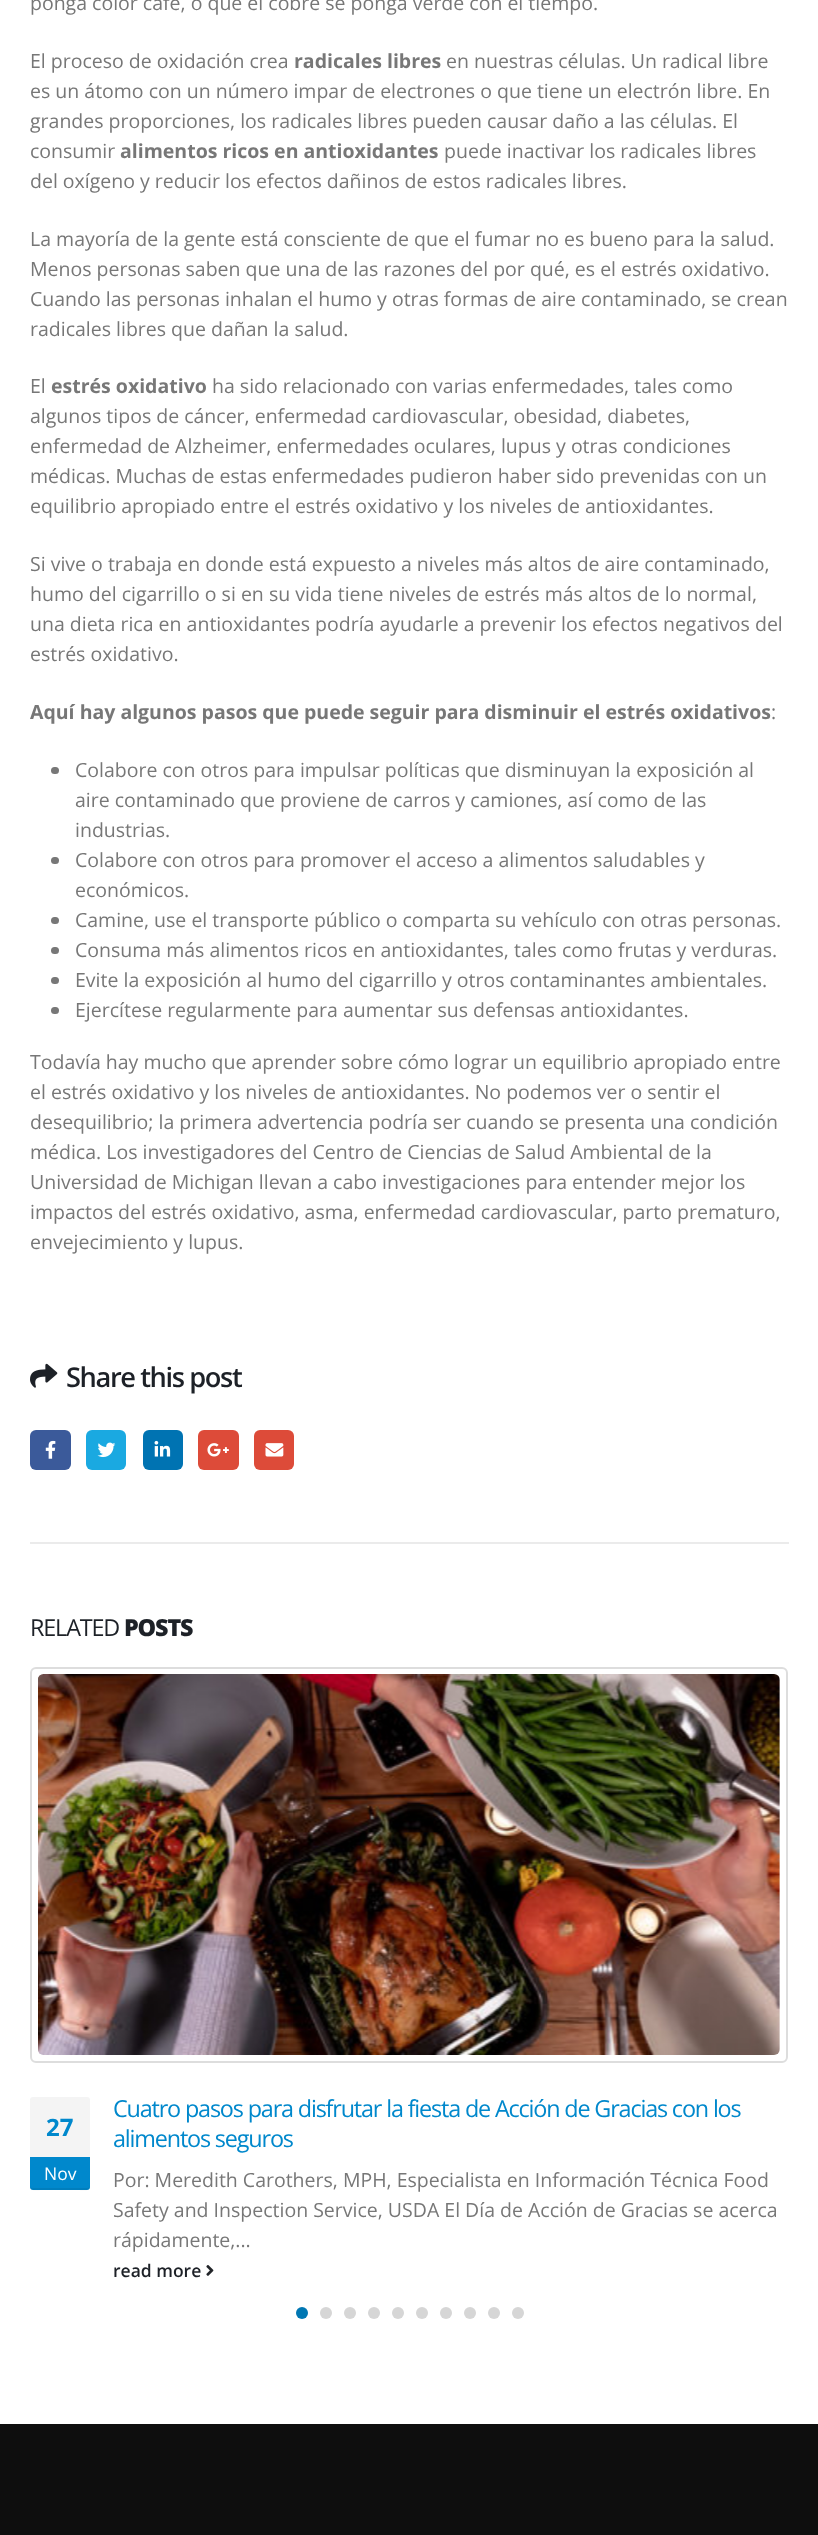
<!DOCTYPE html>
<meta charset="utf-8">
<style>body { margin: 0 } canvas { display: block }</style>
<canvas id="canvas" width="818" height="2535"></canvas>
<img id="img1" src="images/1.png" hidden>
<img id="img2" src="images/2.png" hidden>
<img id="img3" src="images/3.png" hidden>
<img id="img4" src="images/4.png" hidden>
<img id="img5" src="images/5.png" hidden>
<img id="img6" src="images/6.png" hidden>
<img id="img7" src="images/7.png" hidden>
<img id="img8" src="images/8.png" hidden>
<script>
window.onload = function () {
    const canvas = document.getElementById('canvas');
    const context = canvas.getContext('2d');
    context.miterLimit = 4;
    context.fontKerning = 'normal';

    context.fillStyle = 'rgb(255, 255, 255)';
    context.fillRect(0, 0, 818, 2535);
    context.fillStyle = 'rgb(119, 119, 119)';
    context.beginPath();
    context.roundRect(51, 767, 8, 7, 3.5);
    context.fill();
    context.beginPath();
    context.roundRect(51, 857, 8, 7, 3.5);
    context.fill();
    context.beginPath();
    context.roundRect(51, 917, 8, 7, 3.5);
    context.fill();
    context.beginPath();
    context.roundRect(51, 947, 8, 7, 3.5);
    context.fill();
    context.beginPath();
    context.roundRect(51, 977, 8, 7, 3.5);
    context.fill();
    context.beginPath();
    context.roundRect(51, 1007, 8, 7, 3.5);
    context.fill();
    context.drawImage(document.getElementById('img1'), 30, 1363, 28, 25);
    context.fillStyle = 'rgb(59, 90, 154)';
    context.beginPath();
    context.roundRect(30, 1430, 41, 40, 6);
    context.fill();
    context.drawImage(document.getElementById('img2'), 45, 1440, 11, 19);
    context.fillStyle = 'rgb(26, 169, 225)';
    context.beginPath();
    context.roundRect(86, 1430, 40, 40, 6);
    context.fill();
    context.drawImage(document.getElementById('img3'), 97, 1442, 19, 16);
    context.fillStyle = 'rgb(0, 115, 178)';
    context.beginPath();
    context.roundRect(143, 1430, 40, 40, 6);
    context.fill();
    context.drawImage(document.getElementById('img4'), 154, 1440, 17, 17);
    context.fillStyle = 'rgb(221, 75, 57)';
    context.beginPath();
    context.roundRect(198, 1430, 41, 40, 6);
    context.fill();
    context.drawImage(document.getElementById('img5'), 207, 1443, 22, 14);
    context.beginPath();
    context.roundRect(254, 1430, 40, 40, 6);
    context.fill();
    context.drawImage(document.getElementById('img6'), 265, 1443, 19, 14);
    context.fillStyle = 'rgb(235, 235, 235)';
    context.fillRect(30, 1542, 759, 2);
    context.beginPath();
    context.roundRect(31, 1668, 756, 394, 5);
    context.strokeStyle = 'rgb(221, 221, 221)';
    context.lineWidth = 2;
    context.stroke();
    context.drawImage(document.getElementById('img7'), 38, 1674, 742, 381);
    context.fillStyle = 'rgb(244, 244, 244)';
    context.beginPath();
    context.roundRect(30, 2097, 60, 60, [3, 3, 0, 0]);
    context.fill();
    context.fillStyle = 'rgb(0, 136, 204)';
    context.beginPath();
    context.roundRect(30, 2157, 60, 33, [0, 0, 3, 3]);
    context.fill();
    context.fillStyle = 'rgba(0, 0, 0, 0.07)';
    context.beginPath();
    context.moveTo(30, 2186);
    context.bezierCurveTo(30, 2192, 38, 2190, 42, 2190);
    context.lineTo(78, 2190);
    context.bezierCurveTo(82, 2190, 90, 2192, 90, 2186);
    context.bezierCurveTo(90, 2187, 89, 2188, 87, 2188);
    context.lineTo(33, 2188);
    context.bezierCurveTo(31, 2188, 30, 2187, 30, 2186);
    context.closePath();
    context.fill();
    context.drawImage(document.getElementById('img8'), 206, 2265, 8, 11);
    context.fillStyle = 'rgb(0, 119, 179)';
    context.beginPath();
    context.arc(302, 2313, 6, 0, 2 * Math.PI);
    context.fill();
    context.fillStyle = 'rgb(214, 214, 214)';
    context.beginPath();
    context.arc(326, 2313, 6, 0, 2 * Math.PI);
    context.fill();
    context.beginPath();
    context.arc(350, 2313, 6, 0, 2 * Math.PI);
    context.fill();
    context.beginPath();
    context.arc(374, 2313, 6, 0, 2 * Math.PI);
    context.fill();
    context.beginPath();
    context.arc(398, 2313, 6, 0, 2 * Math.PI);
    context.fill();
    context.beginPath();
    context.arc(422, 2313, 6, 0, 2 * Math.PI);
    context.fill();
    context.beginPath();
    context.arc(446, 2313, 6, 0, 2 * Math.PI);
    context.fill();
    context.beginPath();
    context.arc(470, 2313, 6, 0, 2 * Math.PI);
    context.fill();
    context.beginPath();
    context.arc(494, 2313, 6, 0, 2 * Math.PI);
    context.fill();
    context.beginPath();
    context.arc(518, 2313, 6, 0, 2 * Math.PI);
    context.fill();
    context.fillStyle = 'rgb(14, 14, 14)';
    context.fillRect(0, 2424, 818, 111);
    context.font = '19.5px Open Sans';
    context.fillStyle = 'rgb(119, 119, 119)';
    context.fillText('ponga color café́, o que el cobre se ponga verde con el tiempo.', 30, 10);
    context.fillText('El proceso de oxidación crea', 30, 68);
    context.font = 'bold 19.5px Open Sans';
    context.fillText('radicales libres', 294, 68);
    context.font = '19.5px Open Sans';
    context.fillText('en nuestras células. Un radical libre', 446, 68);
    context.fillText('es un átomo con un número impar de electrones o que tiene un electrón libre. En', 30, 98);
    context.fillText('grandes proporciones, los radicales libres pueden causar daño a las células. El', 30, 128);
    context.fillText('consumir', 30, 158);
    context.font = 'bold 19.5px Open Sans';
    context.fillText('alimentos ricos en antioxidantes', 120, 158);
    context.font = '19.5px Open Sans';
    context.fillText('puede inactivar los radicales libres', 444, 158);
    context.fillText('del oxígeno y reducir los efectos dañinos de estos radicales libres.', 30, 188);
    context.fillText('La mayoría de la gente está consciente de que el fumar no es bueno para la salud.', 30, 246);
    context.fillText('Menos personas saben que una de las razones del por qué, es el estrés oxidativo.', 30, 276);
    context.fillText('Cuando las personas inhalan el humo y otras formas de aire contaminado, se crean', 30, 306);
    context.fillText('radicales libres que dañan la salud.', 30, 336);
    context.fillText('El', 30, 393);
    context.font = 'bold 19.5px Open Sans';
    context.fillText('estrés oxidativo', 51, 393);
    context.font = '19.5px Open Sans';
    context.fillText('ha sido relacionado con varias enfermedades, tales como', 212, 393);
    context.fillText('algunos tipos de cáncer, enfermedad cardiovascular, obesidad, diabetes,', 30, 423);
    context.fillText('enfermedad de Alzheimer, enfermedades oculares, lupus y otras condiciones', 30, 453);
    context.fillText('médicas. Muchas de estas enfermedades pudieron haber sido prevenidas con un', 30, 483);
    context.fillText('equilibrio apropiado entre el estrés oxidativo y los niveles de antioxidantes.', 30, 513);
    context.fillText('Si vive o trabaja en donde está expuesto a niveles más altos de aire contaminado,', 30, 571);
    context.fillText('humo del cigarrillo o si en su vida tiene niveles de estrés más altos de lo normal,', 30, 601);
    context.fillText('una dieta rica en antioxidantes podría ayudarle a prevenir los efectos negativos del', 30, 631);
    context.fillText('estrés oxidativo.', 30, 661);
    context.font = 'bold 19.5px Open Sans';
    context.fillText('Aquí hay algunos pasos que puede seguir para disminuir el estrés oxidativos', 30, 719);
    context.font = '19.5px Open Sans';
    context.fillText(':', 771, 719);
    context.fillText('Colabore con otros para impulsar políticas que disminuyan la exposición al', 75, 777);
    context.fillText('aire contaminado que proviene de carros y camiones, así como de las', 75, 807);
    context.fillText('industrias.', 75, 837);
    context.fillText('Colabore con otros para promover el acceso a alimentos saludables y', 75, 867);
    context.fillText('económicos.', 75, 897);
    context.fillText('Camine, use el transporte público o comparta su vehículo con otras personas.', 75, 927);
    context.fillText('Consuma más alimentos ricos en antioxidantes, tales como frutas y verduras.', 75, 957);
    context.fillText('Evite la exposición al humo del cigarrillo y otros contaminantes ambientales.', 75, 987);
    context.fillText('Ejercítese regularmente para aumentar sus defensas antioxidantes.', 75, 1017);
    context.fillText('Todavía hay mucho que aprender sobre cómo lograr un equilibrio apropiado entre', 30, 1069);
    context.fillText('el estrés oxidativo y los niveles de antioxidantes. No podemos ver o sentir el', 30, 1099);
    context.fillText('desequilibrio; la primera advertencia podría ser cuando se presenta una condición', 30, 1129);
    context.fillText('médica. Los investigadores del Centro de Ciencias de Salud Ambiental de la', 30, 1159);
    context.fillText('Universidad de Michigan llevan a cabo investigaciones para entender mejor los', 30, 1189);
    context.fillText('impactos del estrés oxidativo, asma, enfermedad cardiovascular, parto prematuro,', 30, 1219);
    context.fillText('envejecimiento y lupus.', 30, 1249);
    context.letterSpacing = '-1.4px';
    context.font = '600 27.25px Open Sans';
    context.fillStyle = 'rgb(29, 33, 39)';
    context.fillText('Share this post', 66, 1387);
    context.letterSpacing = '-1.17px';
    context.font = '23.4px Open Sans';
    context.fillText('RELATED', 30, 1636);
    context.font = '800 23.4px Open Sans';
    context.fillText('POSTS', 124, 1636);
    context.letterSpacing = '0px';
    context.font = 'bold 24px Open Sans';
    context.fillStyle = 'rgb(0, 136, 204)';
    context.fillText('27', 46, 2136);
    context.font = '17.5px Open Sans';
    context.fillStyle = 'rgb(255, 255, 255)';
    context.fillText('Nov', 44, 2180);
    context.letterSpacing = '-1.17px';
    context.font = '23.4px Open Sans';
    context.fillStyle = 'rgb(0, 136, 204)';
    context.fillText('Cuatro pasos para disfrutar la fiesta de Acción de Gracias con los', 113, 2117);
    context.fillText('alimentos seguros', 113, 2147);
    context.letterSpacing = '0px';
    context.font = '19.5px Open Sans';
    context.fillStyle = 'rgb(119, 119, 119)';
    context.fillText('Por: Meredith Carothers, MPH, Especialista en Información Técnica Food', 113, 2187);
    context.fillText('Safety and Inspection Service, USDA El Día de Acción de Gracias se acerca', 113, 2217);
    context.fillText('rápidamente,...', 113, 2247);
    context.font = '600 17.5px Open Sans';
    context.fillStyle = 'rgb(29, 33, 39)';
    context.fillText('read more', 113, 2277);
};
</script>
